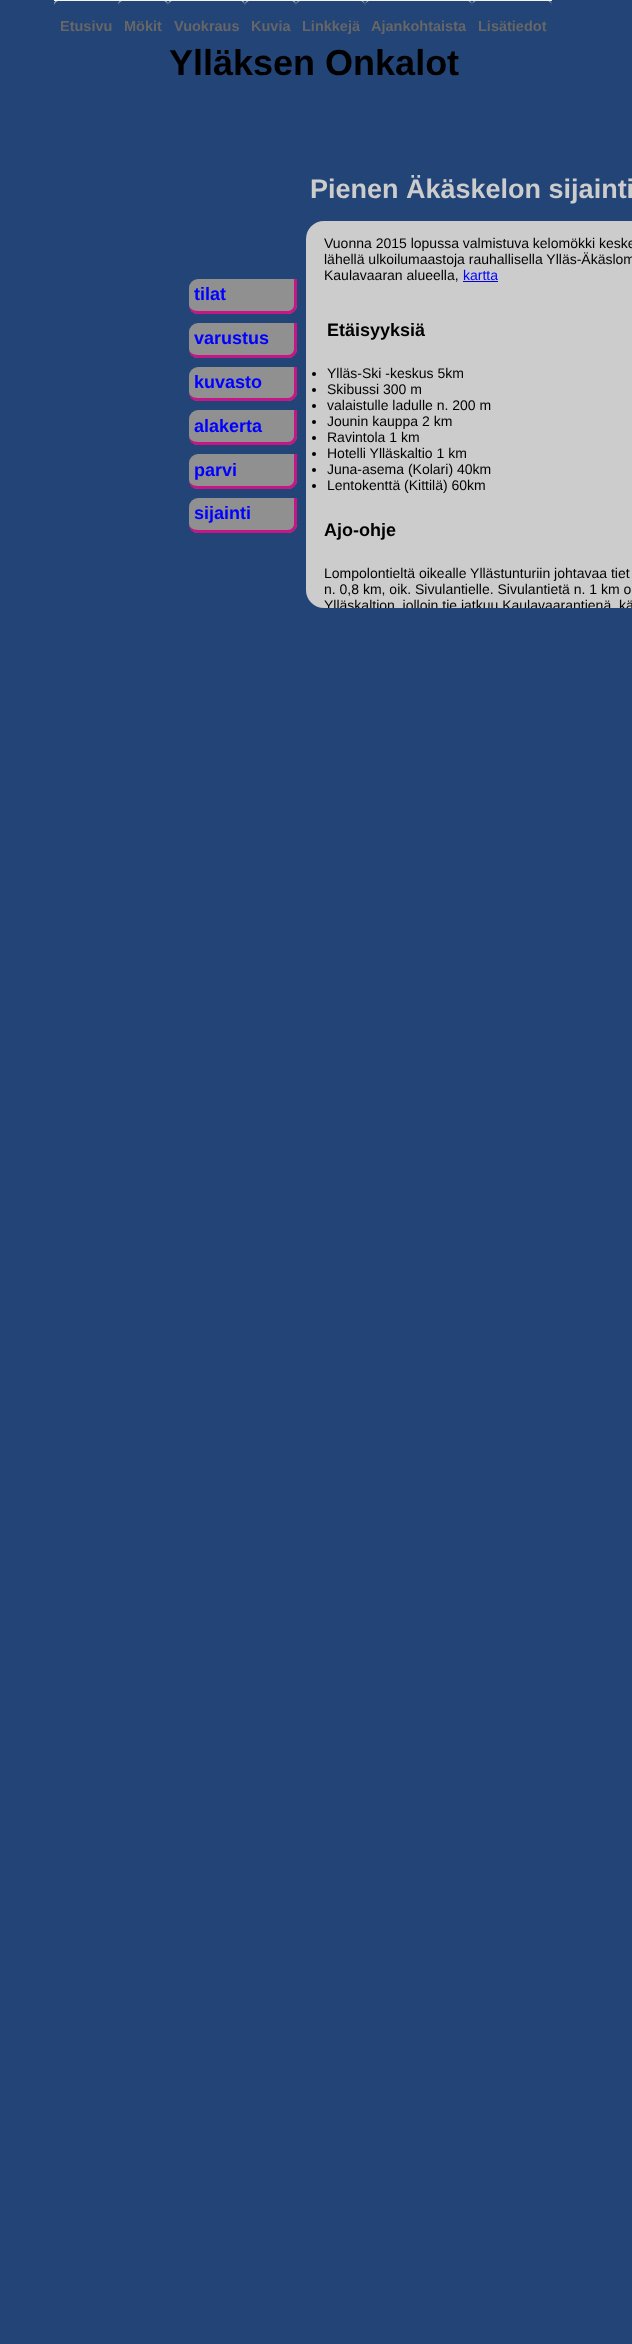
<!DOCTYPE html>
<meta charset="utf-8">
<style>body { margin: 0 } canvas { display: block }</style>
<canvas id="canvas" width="632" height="2344"></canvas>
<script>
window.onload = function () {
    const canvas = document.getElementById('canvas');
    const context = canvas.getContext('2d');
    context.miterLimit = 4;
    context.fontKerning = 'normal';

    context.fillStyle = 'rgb(34, 68, 119)';
    context.fillRect(0, 0, 632, 2344);
    context.fillStyle = 'rgb(245, 245, 245)';
    context.fillRect(54, 0, 498, 1);
    context.beginPath();
    context.moveTo(59, 1);
    context.lineTo(118, 1);
    context.lineTo(118, 0);
    context.lineTo(59, 0);
    context.bezierCurveTo(56, 0, 54, 2, 54, 5);
    context.lineTo(54, 6);
    context.bezierCurveTo(54, 3, 56, 1, 59, 1);
    context.closePath();
    context.fill();
    context.beginPath();
    context.moveTo(123, 1);
    context.lineTo(163, 1);
    context.bezierCurveTo(166, 1, 168, 3, 168, 6);
    context.bezierCurveTo(168, -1, 162, 0, 156, 0);
    context.lineTo(130, 0);
    context.bezierCurveTo(124, 0, 118, -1, 118, 6);
    context.bezierCurveTo(118, 3, 120, 1, 123, 1);
    context.closePath();
    context.fill();
    context.beginPath();
    context.moveTo(173, 1);
    context.lineTo(240, 1);
    context.bezierCurveTo(243, 1, 245, 3, 245, 6);
    context.bezierCurveTo(245, -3, 235, 0, 229, 0);
    context.lineTo(184, 0);
    context.bezierCurveTo(178, 0, 168, -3, 168, 6);
    context.bezierCurveTo(168, 3, 170, 1, 173, 1);
    context.closePath();
    context.fill();
    context.beginPath();
    context.moveTo(250, 1);
    context.lineTo(291, 1);
    context.bezierCurveTo(294, 1, 296, 3, 296, 6);
    context.bezierCurveTo(296, -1, 290, 0, 284, 0);
    context.lineTo(257, 0);
    context.bezierCurveTo(251, 0, 245, -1, 245, 6);
    context.bezierCurveTo(245, 3, 247, 1, 250, 1);
    context.closePath();
    context.fill();
    context.beginPath();
    context.moveTo(301, 1);
    context.lineTo(360, 1);
    context.bezierCurveTo(363, 1, 365, 3, 365, 6);
    context.bezierCurveTo(365, -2, 356, 0, 350, 0);
    context.lineTo(311, 0);
    context.bezierCurveTo(305, 0, 296, -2, 296, 6);
    context.bezierCurveTo(296, 3, 298, 1, 301, 1);
    context.closePath();
    context.fill();
    context.beginPath();
    context.moveTo(370, 1);
    context.lineTo(467, 1);
    context.bezierCurveTo(470, 1, 472, 3, 472, 6);
    context.bezierCurveTo(472, -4, 456, 0, 451, 0);
    context.lineTo(386, 0);
    context.bezierCurveTo(381, 0, 365, -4, 365, 6);
    context.bezierCurveTo(365, 3, 367, 1, 370, 1);
    context.closePath();
    context.fill();
    context.beginPath();
    context.moveTo(477, 1);
    context.lineTo(547, 1);
    context.bezierCurveTo(550, 1, 552, 3, 552, 6);
    context.bezierCurveTo(552, -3, 541, 0, 535, 0);
    context.lineTo(489, 0);
    context.bezierCurveTo(483, 0, 472, -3, 472, 6);
    context.bezierCurveTo(472, 3, 474, 1, 477, 1);
    context.closePath();
    context.fill();
    context.fillStyle = 'rgb(144, 144, 144)';
    context.beginPath();
    context.roundRect(189, 279, 108, 35, [9, 0, 9, 9]);
    context.fill();
    context.fillStyle = 'rgb(199, 21, 133)';
    context.beginPath();
    context.moveTo(198, 279);
    context.lineTo(297, 279);
    context.lineTo(297, 305);
    context.bezierCurveTo(297, 310, 293, 314, 288, 314);
    context.lineTo(198, 314);
    context.bezierCurveTo(193, 314, 189, 310, 189, 305);
    context.lineTo(189, 288);
    context.bezierCurveTo(189, 283, 193, 279, 198, 279);
    context.closePath();
    context.moveTo(198, 279);
    context.lineTo(294, 279);
    context.lineTo(294, 305);
    context.bezierCurveTo(294, 308, 291, 311, 288, 311);
    context.lineTo(198, 311);
    context.bezierCurveTo(193, 311, 189, 308, 189, 305);
    context.lineTo(189, 288);
    context.bezierCurveTo(189, 283, 193, 279, 198, 279);
    context.closePath();
    context.fill('evenodd');
    context.fillStyle = 'rgb(144, 144, 144)';
    context.beginPath();
    context.roundRect(189, 323, 108, 35, [9, 0, 9, 9]);
    context.fill();
    context.fillStyle = 'rgb(199, 21, 133)';
    context.beginPath();
    context.moveTo(198, 323);
    context.lineTo(297, 323);
    context.lineTo(297, 349);
    context.bezierCurveTo(297, 354, 293, 358, 288, 358);
    context.lineTo(198, 358);
    context.bezierCurveTo(193, 358, 189, 354, 189, 349);
    context.lineTo(189, 332);
    context.bezierCurveTo(189, 327, 193, 323, 198, 323);
    context.closePath();
    context.moveTo(198, 323);
    context.lineTo(294, 323);
    context.lineTo(294, 349);
    context.bezierCurveTo(294, 352, 291, 355, 288, 355);
    context.lineTo(198, 355);
    context.bezierCurveTo(193, 355, 189, 352, 189, 349);
    context.lineTo(189, 332);
    context.bezierCurveTo(189, 327, 193, 323, 198, 323);
    context.closePath();
    context.fill('evenodd');
    context.fillStyle = 'rgb(144, 144, 144)';
    context.beginPath();
    context.roundRect(189, 367, 108, 34, [9, 0, 9, 9]);
    context.fill();
    context.fillStyle = 'rgb(199, 21, 133)';
    context.beginPath();
    context.moveTo(198, 367);
    context.lineTo(297, 367);
    context.lineTo(297, 392);
    context.bezierCurveTo(297, 397, 293, 401, 288, 401);
    context.lineTo(198, 401);
    context.bezierCurveTo(193, 401, 189, 397, 189, 392);
    context.lineTo(189, 376);
    context.bezierCurveTo(189, 371, 193, 367, 198, 367);
    context.closePath();
    context.moveTo(198, 367);
    context.lineTo(294, 367);
    context.lineTo(294, 392);
    context.bezierCurveTo(294, 395, 291, 398, 288, 398);
    context.lineTo(198, 398);
    context.bezierCurveTo(193, 398, 189, 395, 189, 392);
    context.lineTo(189, 376);
    context.bezierCurveTo(189, 371, 193, 367, 198, 367);
    context.closePath();
    context.fill('evenodd');
    context.fillStyle = 'rgb(144, 144, 144)';
    context.beginPath();
    context.roundRect(189, 410, 108, 35, [9, 0, 9, 9]);
    context.fill();
    context.fillStyle = 'rgb(199, 21, 133)';
    context.beginPath();
    context.moveTo(198, 410);
    context.lineTo(297, 410);
    context.lineTo(297, 436);
    context.bezierCurveTo(297, 441, 293, 445, 288, 445);
    context.lineTo(198, 445);
    context.bezierCurveTo(193, 445, 189, 441, 189, 436);
    context.lineTo(189, 419);
    context.bezierCurveTo(189, 414, 193, 410, 198, 410);
    context.closePath();
    context.moveTo(198, 410);
    context.lineTo(294, 410);
    context.lineTo(294, 436);
    context.bezierCurveTo(294, 439, 291, 442, 288, 442);
    context.lineTo(198, 442);
    context.bezierCurveTo(193, 442, 189, 439, 189, 436);
    context.lineTo(189, 419);
    context.bezierCurveTo(189, 414, 193, 410, 198, 410);
    context.closePath();
    context.fill('evenodd');
    context.fillStyle = 'rgb(144, 144, 144)';
    context.beginPath();
    context.roundRect(189, 454, 108, 35, [9, 0, 9, 9]);
    context.fill();
    context.fillStyle = 'rgb(199, 21, 133)';
    context.beginPath();
    context.moveTo(198, 454);
    context.lineTo(297, 454);
    context.lineTo(297, 480);
    context.bezierCurveTo(297, 485, 293, 489, 288, 489);
    context.lineTo(198, 489);
    context.bezierCurveTo(193, 489, 189, 485, 189, 480);
    context.lineTo(189, 463);
    context.bezierCurveTo(189, 458, 193, 454, 198, 454);
    context.closePath();
    context.moveTo(198, 454);
    context.lineTo(294, 454);
    context.lineTo(294, 480);
    context.bezierCurveTo(294, 483, 291, 486, 288, 486);
    context.lineTo(198, 486);
    context.bezierCurveTo(193, 486, 189, 483, 189, 480);
    context.lineTo(189, 463);
    context.bezierCurveTo(189, 458, 193, 454, 198, 454);
    context.closePath();
    context.fill('evenodd');
    context.fillStyle = 'rgb(144, 144, 144)';
    context.beginPath();
    context.roundRect(189, 498, 108, 35, [9, 0, 9, 9]);
    context.fill();
    context.fillStyle = 'rgb(199, 21, 133)';
    context.beginPath();
    context.moveTo(198, 498);
    context.lineTo(297, 498);
    context.lineTo(297, 524);
    context.bezierCurveTo(297, 529, 293, 533, 288, 533);
    context.lineTo(198, 533);
    context.bezierCurveTo(193, 533, 189, 529, 189, 524);
    context.lineTo(189, 507);
    context.bezierCurveTo(189, 502, 193, 498, 198, 498);
    context.closePath();
    context.moveTo(198, 498);
    context.lineTo(294, 498);
    context.lineTo(294, 524);
    context.bezierCurveTo(294, 527, 291, 530, 288, 530);
    context.lineTo(198, 530);
    context.bezierCurveTo(193, 530, 189, 527, 189, 524);
    context.lineTo(189, 507);
    context.bezierCurveTo(189, 502, 193, 498, 198, 498);
    context.closePath();
    context.fill('evenodd');
    context.fillStyle = 'rgb(204, 204, 204)';
    context.beginPath();
    context.roundRect(306, 221, 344, 387, 18);
    context.fill();
    context.fillStyle = 'rgb(0, 0, 238)';
    context.fillRect(463, 281, 35, 1);
    context.fillStyle = 'rgb(0, 0, 0)';
    context.beginPath();
    context.arc(314, 374, 2, 0, 2 * Math.PI);
    context.fill();
    context.beginPath();
    context.arc(314, 390, 2, 0, 2 * Math.PI);
    context.fill();
    context.beginPath();
    context.arc(314, 406, 2, 0, 2 * Math.PI);
    context.fill();
    context.beginPath();
    context.arc(314, 422, 2, 0, 2 * Math.PI);
    context.fill();
    context.beginPath();
    context.arc(314, 438, 2, 0, 2 * Math.PI);
    context.fill();
    context.beginPath();
    context.arc(314, 454, 2, 0, 2 * Math.PI);
    context.fill();
    context.beginPath();
    context.arc(314, 470, 2, 0, 2 * Math.PI);
    context.fill();
    context.beginPath();
    context.arc(314, 486, 2, 0, 2 * Math.PI);
    context.fill();
    context.font = 'bold 14.5px Liberation Sans';
    context.fillStyle = 'rgb(102, 102, 102)';
    context.fillText('Etusivu', 60, 31);
    context.fillText('Mökit', 124, 31);
    context.fillText('Vuokraus', 174, 31);
    context.fillText('Kuvia', 251, 31);
    context.fillText('Linkkejä', 302, 31);
    context.fillText('Ajankohtaista', 371, 31);
    context.fillText('Lisätiedot', 478, 31);
    context.font = 'bold 36px Liberation Sans';
    context.fillStyle = 'rgb(0, 0, 0)';
    context.fillText('Ylläksen Onkalot', 169, 75);
    context.font = 'bold 27px Liberation Sans';
    context.fillStyle = 'rgb(204, 204, 204)';
    context.fillText('Pienen Äkäskelon sijainti', 310, 198);
    context.font = 'bold 18px Liberation Sans';
    context.fillStyle = 'rgb(0, 0, 255)';
    context.fillText('tilat', 194, 300);
    context.fillText('varustus', 194, 344);
    context.fillText('kuvasto', 194, 388);
    context.fillText('alakerta', 194, 432);
    context.fillText('parvi', 194, 476);
    context.fillText('sijainti', 194, 519);
    context.font = '14px Liberation Sans';
    context.fillStyle = 'rgb(0, 0, 0)';
    context.fillText('Vuonna 2015 lopussa valmistuva kelomökki keske', 324, 248);
    context.fillText('lähellä ulkoilumaastoja rauhallisella Ylläs-Äkäslom', 324, 264);
    context.fillText('Kaulavaaran alueella,', 324, 280);
    context.fillStyle = 'rgb(0, 0, 255)';
    context.fillText('kartta', 463, 280);
    context.font = 'bold 18px Liberation Sans';
    context.fillStyle = 'rgb(0, 0, 0)';
    context.fillText('Etäisyyksiä', 327, 336);
    context.font = '14px Liberation Sans';
    context.fillText('Ylläs-Ski -keskus 5km', 327, 378);
    context.fillText('Skibussi 300 m', 327, 394);
    context.fillText('valaistulle ladulle n. 200 m', 327, 410);
    context.fillText('Jounin kauppa 2 km', 327, 426);
    context.fillText('Ravintola 1 km', 327, 442);
    context.fillText('Hotelli Ylläskaltio 1 km', 327, 458);
    context.fillText('Juna-asema (Kolari) 40km', 327, 474);
    context.fillText('Lentokenttä (Kittilä) 60km', 327, 490);
    context.font = 'bold 18px Liberation Sans';
    context.fillText('Ajo-ohje', 324, 536);
    context.font = '14px Liberation Sans';
    context.fillText('Lompolontieltä oikealle Yllästunturiin johtavaa tiet', 324, 578);
    context.fillText('n. 0,8 km, oik. Sivulantielle. Sivulantietä n. 1 km o', 324, 594);
    context.save();
    context.beginPath();
    context.roundRect(306, 221, 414, 387, 18);
    context.clip();
    context.fillText('Ylläskaltion, jolloin tie jatkuu Kaulavaarantienä, kä', 324, 610);
    context.restore();
};
</script>
